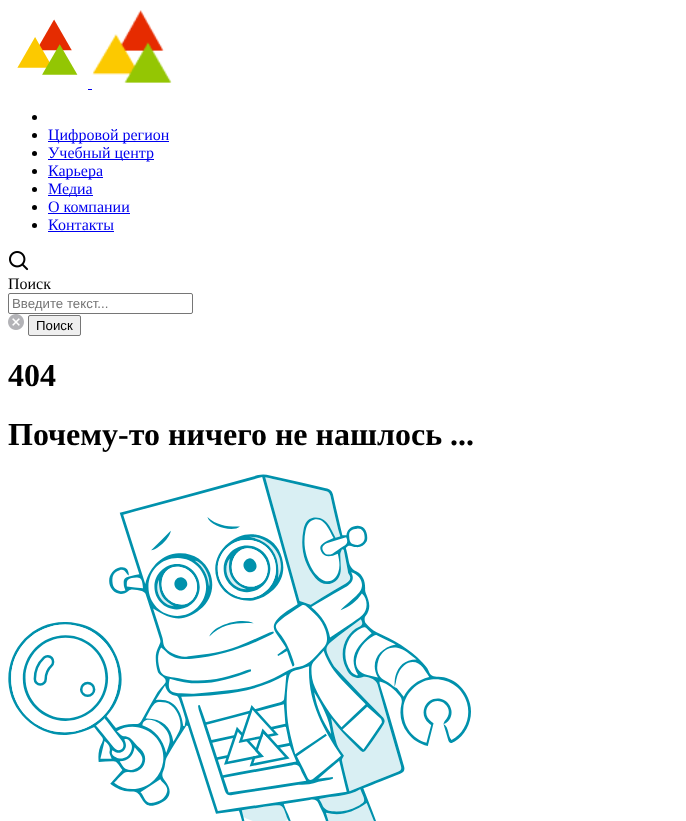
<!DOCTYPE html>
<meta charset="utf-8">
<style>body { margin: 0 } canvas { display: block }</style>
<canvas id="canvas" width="686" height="821"></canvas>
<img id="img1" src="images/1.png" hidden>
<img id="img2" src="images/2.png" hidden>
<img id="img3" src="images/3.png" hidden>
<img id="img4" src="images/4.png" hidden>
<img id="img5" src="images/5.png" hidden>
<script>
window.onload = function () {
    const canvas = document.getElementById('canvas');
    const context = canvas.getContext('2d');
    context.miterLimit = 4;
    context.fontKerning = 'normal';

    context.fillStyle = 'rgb(255, 255, 255)';
    context.fillRect(0, 0, 686, 821);
    context.drawImage(document.getElementById('img1'), 17, 19, 61, 56);
    context.drawImage(document.getElementById('img2'), 92, 10, 80, 73);
    context.fillStyle = 'rgb(0, 0, 238)';
    context.fillRect(88, 89, 4, 1);
    context.fillStyle = 'rgb(0, 0, 0)';
    context.beginPath();
    context.arc(34.5, 117.5, 2.5, 0, 2 * Math.PI);
    context.fill();
    context.beginPath();
    context.arc(34.5, 135.5, 2.5, 0, 2 * Math.PI);
    context.fill();
    context.fillStyle = 'rgb(0, 0, 238)';
    context.fillRect(48, 141, 121, 1);
    context.fillStyle = 'rgb(0, 0, 0)';
    context.beginPath();
    context.arc(34.5, 153.5, 2.5, 0, 2 * Math.PI);
    context.fill();
    context.fillStyle = 'rgb(0, 0, 238)';
    context.fillRect(48, 159, 106, 1);
    context.fillStyle = 'rgb(0, 0, 0)';
    context.beginPath();
    context.arc(34.5, 171.5, 2.5, 0, 2 * Math.PI);
    context.fill();
    context.fillStyle = 'rgb(0, 0, 238)';
    context.fillRect(48, 177, 55, 1);
    context.fillStyle = 'rgb(0, 0, 0)';
    context.beginPath();
    context.arc(34.5, 189.5, 2.5, 0, 2 * Math.PI);
    context.fill();
    context.fillStyle = 'rgb(0, 0, 238)';
    context.fillRect(48, 195, 45, 1);
    context.fillStyle = 'rgb(0, 0, 0)';
    context.beginPath();
    context.arc(34.5, 207.5, 2.5, 0, 2 * Math.PI);
    context.fill();
    context.fillStyle = 'rgb(0, 0, 238)';
    context.fillRect(48, 213, 82, 1);
    context.fillStyle = 'rgb(0, 0, 0)';
    context.beginPath();
    context.arc(34.5, 225.5, 2.5, 0, 2 * Math.PI);
    context.fill();
    context.fillStyle = 'rgb(0, 0, 238)';
    context.fillRect(48, 231, 66, 1);
    context.drawImage(document.getElementById('img3'), 9, 251, 20, 20);
    context.beginPath();
    context.roundRect(8.5, 293.5, 184, 20, 1.5);
    context.strokeStyle = 'rgb(118, 118, 118)';
    context.stroke();
    context.drawImage(document.getElementById('img4'), 8, 314, 16, 16);
    context.fillStyle = 'rgb(239, 239, 239)';
    context.beginPath();
    context.roundRect(28.5, 315.5, 52, 20, 1.5);
    context.fill();
    context.stroke();
    context.drawImage(document.getElementById('img5'), 8, 474, 463, 347);
    context.font = '16px Liberation Serif';
    context.fillStyle = 'rgb(0, 0, 238)';
    context.fillText('Цифровой регион', 48, 140);
    context.fillText('Учебный центр', 48, 158);
    context.fillText('Карьера', 48, 176);
    context.fillText('Медиа', 48, 194);
    context.fillText('О компании', 48, 212);
    context.fillText('Контакты', 48, 230);
    context.fillStyle = 'rgb(0, 0, 0)';
    context.fillText('Поиск', 8, 289);
    context.font = '13.25px Liberation Sans';
    context.fillStyle = 'rgb(117, 117, 117)';
    context.fillText('Введите текст...', 12, 308);
    context.fillStyle = 'rgb(0, 0, 0)';
    context.fillText('Поиск', 36, 330);
    context.font = 'bold 32px Liberation Serif';
    context.fillText('404', 8, 386);
    context.fillText('Почему-то ничего не нашлось ...', 8, 445);
};
</script>
